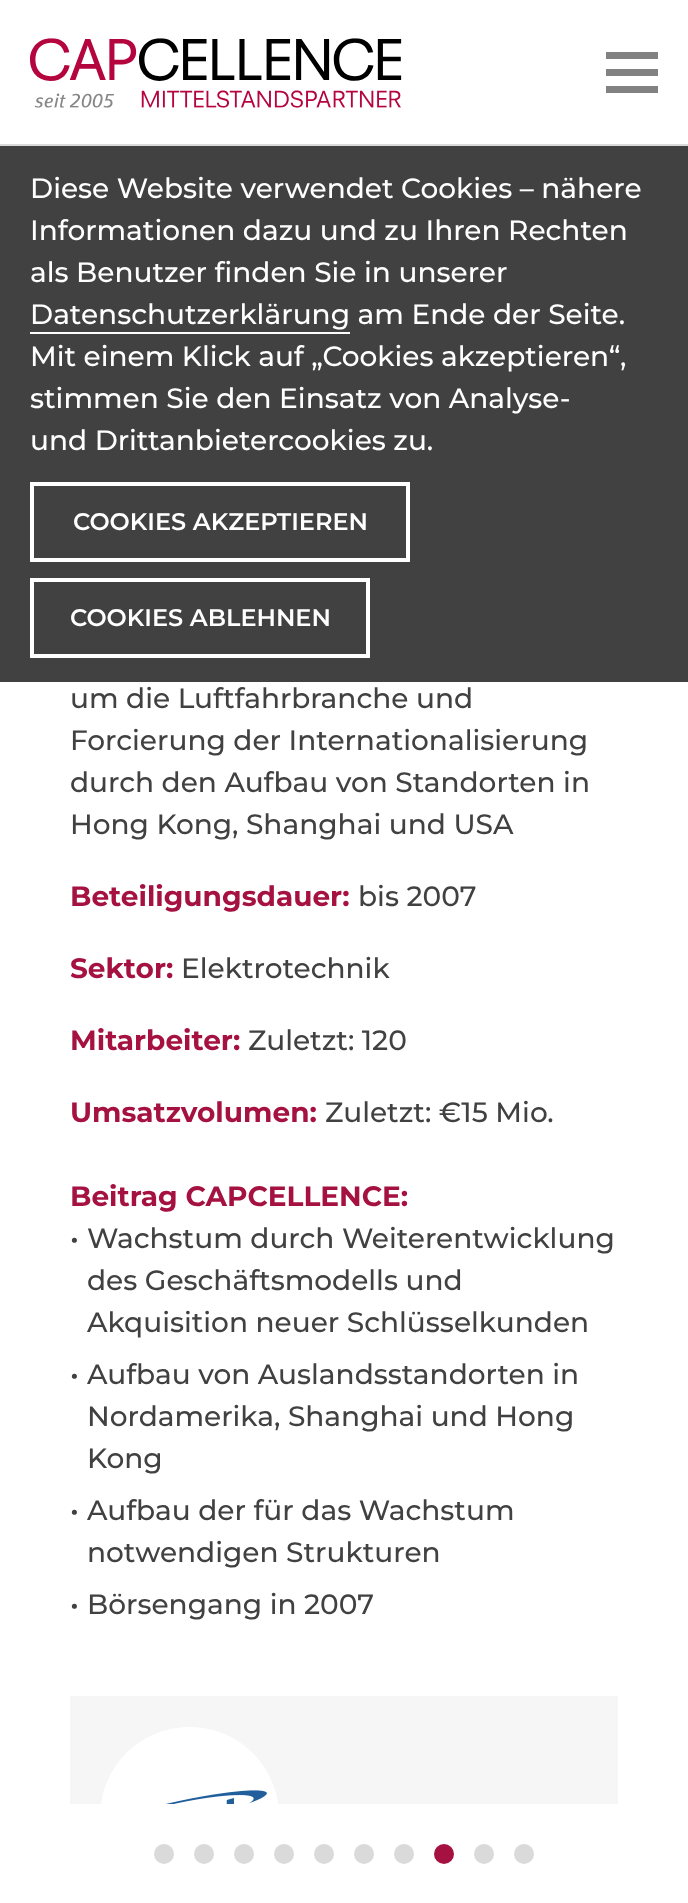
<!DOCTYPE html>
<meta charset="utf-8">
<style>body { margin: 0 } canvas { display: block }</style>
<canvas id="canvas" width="688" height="1903"></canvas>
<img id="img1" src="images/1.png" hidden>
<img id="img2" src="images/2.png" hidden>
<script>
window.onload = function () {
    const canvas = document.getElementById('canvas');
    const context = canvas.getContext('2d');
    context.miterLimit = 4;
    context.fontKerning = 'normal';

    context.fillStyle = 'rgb(255, 255, 255)';
    context.fillRect(0, 0, 688, 1903);
    context.fillStyle = 'rgb(218, 218, 218)';
    context.fillRect(0, 144, 688, 2);
    context.drawImage(document.getElementById('img1'), 30, 38, 372, 70);
    context.fillStyle = 'rgb(130, 130, 130)';
    context.beginPath();
    context.moveTo(606, 52);
    context.lineTo(606, 59);
    context.lineTo(658, 59);
    context.lineTo(658, 52);
    context.closePath();
    context.moveTo(606, 69);
    context.lineTo(606, 76);
    context.lineTo(658, 76);
    context.lineTo(658, 69);
    context.closePath();
    context.moveTo(606, 86);
    context.lineTo(606, 93);
    context.lineTo(658, 93);
    context.lineTo(658, 86);
    context.closePath();
    context.fill();
    context.fillStyle = 'rgb(65, 65, 65)';
    context.fillRect(0, 146, 688, 536);
    context.fillStyle = 'rgb(255, 255, 255)';
    context.fillRect(30, 332, 320, 2);
    context.strokeStyle = 'rgb(255, 255, 255)';
    context.lineWidth = 4;
    context.strokeRect(32, 484, 376, 76);
    context.strokeRect(32, 580, 336, 76);
    context.fillStyle = 'rgb(246, 246, 246)';
    context.fillRect(70, 1696, 548, 108);
    context.drawImage(document.getElementById('img2'), 101, 1727, 178, 77);
    context.fillStyle = 'rgb(218, 218, 218)';
    context.beginPath();
    context.arc(164, 1854, 10, 0, 2 * Math.PI);
    context.fill();
    context.beginPath();
    context.arc(204, 1854, 10, 0, 2 * Math.PI);
    context.fill();
    context.beginPath();
    context.arc(244, 1854, 10, 0, 2 * Math.PI);
    context.fill();
    context.beginPath();
    context.arc(284, 1854, 10, 0, 2 * Math.PI);
    context.fill();
    context.beginPath();
    context.arc(324, 1854, 10, 0, 2 * Math.PI);
    context.fill();
    context.beginPath();
    context.arc(364, 1854, 10, 0, 2 * Math.PI);
    context.fill();
    context.beginPath();
    context.arc(404, 1854, 10, 0, 2 * Math.PI);
    context.fill();
    context.fillStyle = 'rgb(165, 17, 65)';
    context.beginPath();
    context.arc(444, 1854, 10, 0, 2 * Math.PI);
    context.fill();
    context.fillStyle = 'rgb(218, 218, 218)';
    context.beginPath();
    context.arc(484, 1854, 10, 0, 2 * Math.PI);
    context.fill();
    context.beginPath();
    context.arc(524, 1854, 10, 0, 2 * Math.PI);
    context.fill();
    context.font = '500 28px Montserrat';
    context.fillStyle = 'rgb(255, 255, 255)';
    context.fillText('Diese Website verwendet Cookies – nähere', 30, 198);
    context.fillText('Informationen dazu und zu Ihren Rechten', 30, 240);
    context.fillText('als Benutzer finden Sie in unserer', 30, 282);
    context.fillText('Datenschutzerklärung am Ende der Seite.', 30, 324);
    context.fillText('Mit einem Klick auf „Cookies akzeptieren“,', 30, 366);
    context.fillText('stimmen Sie den Einsatz von Analyse-', 30, 408);
    context.fillText('und Drittanbietercookies zu.', 30, 450);
    context.font = '600 24px Montserrat';
    context.fillText('COOKIES AKZEPTIEREN', 73, 530);
    context.fillText('COOKIES ABLEHNEN', 70, 626);
    context.font = '500 28px Montserrat';
    context.fillStyle = 'rgb(65, 65, 65)';
    context.fillText('um die Luftfahrbranche und', 70, 708);
    context.fillText('Forcierung der Internationalisierung', 70, 750);
    context.fillText('durch den Aufbau von Standorten in', 70, 792);
    context.fillText('Hong Kong, Shanghai und USA', 70, 834);
    context.font = 'bold 28px Montserrat';
    context.fillStyle = 'rgb(165, 17, 65)';
    context.fillText('Beteiligungsdauer:', 70, 906);
    context.font = '500 28px Montserrat';
    context.fillStyle = 'rgb(65, 65, 65)';
    context.fillText('bis 2007', 358, 906);
    context.font = 'bold 28px Montserrat';
    context.fillStyle = 'rgb(165, 17, 65)';
    context.fillText('Sektor:', 70, 978);
    context.font = '500 28px Montserrat';
    context.fillStyle = 'rgb(65, 65, 65)';
    context.fillText('Elektrotechnik', 181, 978);
    context.font = 'bold 28px Montserrat';
    context.fillStyle = 'rgb(165, 17, 65)';
    context.fillText('Mitarbeiter:', 70, 1050);
    context.font = '500 28px Montserrat';
    context.fillStyle = 'rgb(65, 65, 65)';
    context.fillText('Zuletzt: 120', 248, 1050);
    context.font = 'bold 28px Montserrat';
    context.fillStyle = 'rgb(165, 17, 65)';
    context.fillText('Umsatzvolumen:', 70, 1122);
    context.font = '500 28px Montserrat';
    context.fillStyle = 'rgb(65, 65, 65)';
    context.fillText('Zuletzt: €15 Mio.', 325, 1122);
    context.font = 'bold 28px Montserrat';
    context.fillStyle = 'rgb(165, 17, 65)';
    context.fillText('Beitrag CAPCELLENCE:', 70, 1206);
    context.font = '500 28px Montserrat';
    context.fillStyle = 'rgb(65, 65, 65)';
    context.fillText('•', 70, 1248);
    context.fillText('Wachstum durch Weiterentwicklung', 87, 1248);
    context.fillText('des Geschäftsmodells und', 87, 1290);
    context.fillText('Akquisition neuer Schlüsselkunden', 87, 1332);
    context.fillText('•', 70, 1384);
    context.fillText('Aufbau von Auslandsstandorten in', 87, 1384);
    context.fillText('Nordamerika, Shanghai und Hong', 87, 1426);
    context.fillText('Kong', 87, 1468);
    context.fillText('•', 70, 1520);
    context.fillText('Aufbau der für das Wachstum', 87, 1520);
    context.fillText('notwendigen Strukturen', 87, 1562);
    context.fillText('•', 70, 1614);
    context.fillText('Börsengang in 2007', 87, 1614);
};
</script>
